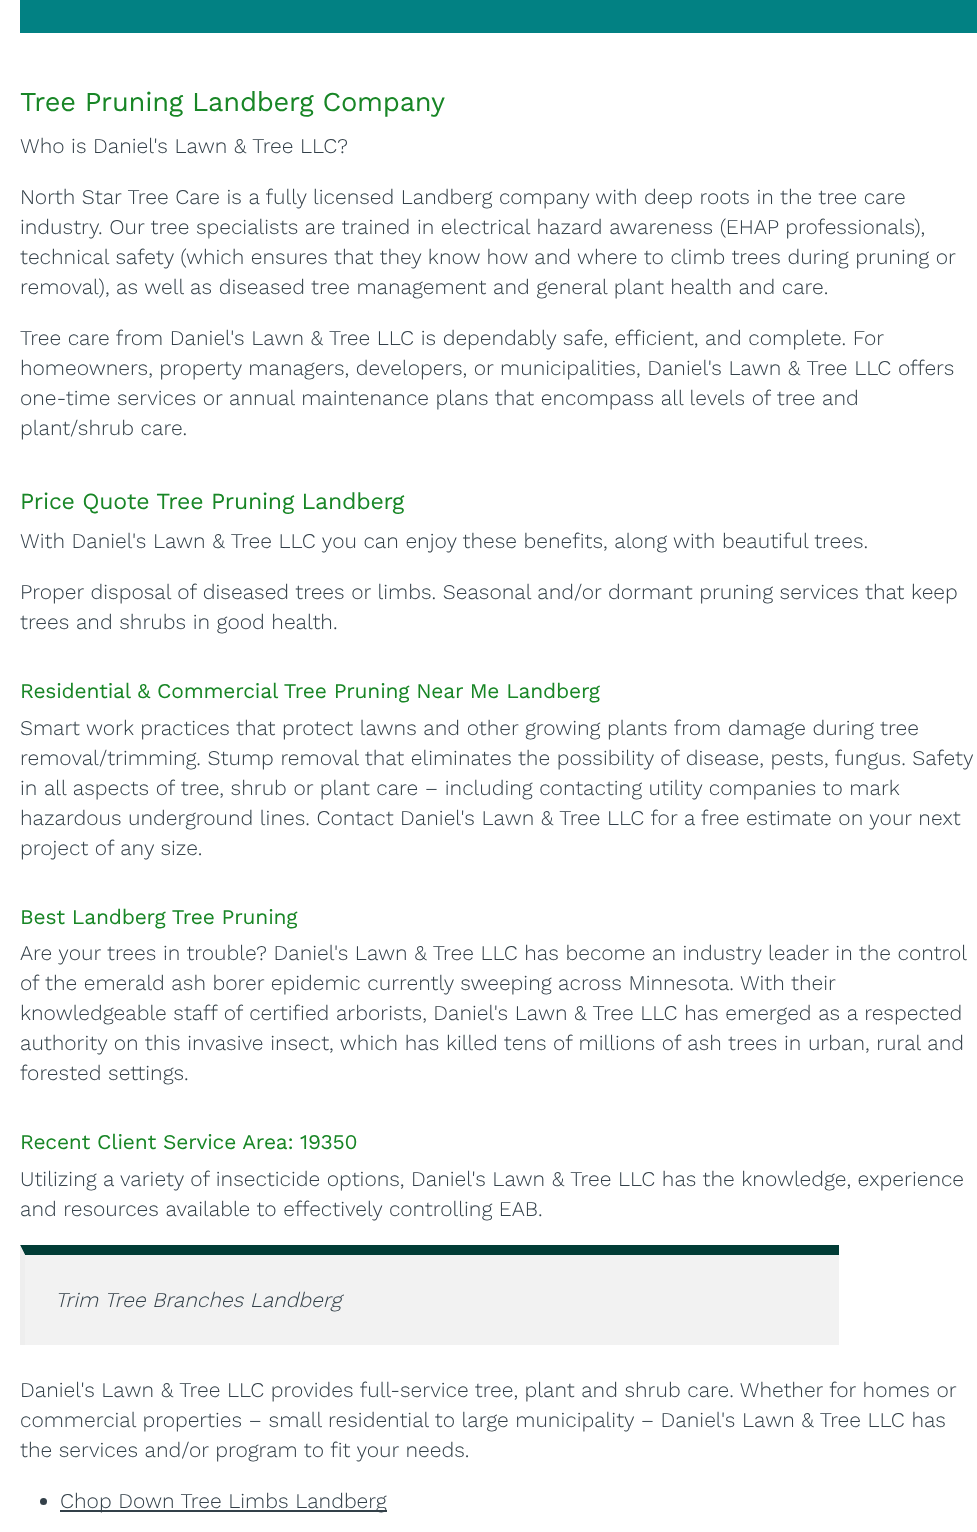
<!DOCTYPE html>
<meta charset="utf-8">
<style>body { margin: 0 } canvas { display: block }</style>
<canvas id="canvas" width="977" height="1532"></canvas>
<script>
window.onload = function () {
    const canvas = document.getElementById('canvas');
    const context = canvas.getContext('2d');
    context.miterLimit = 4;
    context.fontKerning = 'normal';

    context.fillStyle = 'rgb(255, 255, 255)';
    context.fillRect(0, 0, 977, 1532);
    context.fillStyle = 'rgb(2, 129, 131)';
    context.fillRect(20, 0, 957, 33);
    context.fillStyle = 'rgb(242, 242, 242)';
    context.fillRect(20, 1245, 819, 100);
    context.fillStyle = 'rgb(1, 60, 54)';
    context.beginPath();
    context.moveTo(20, 1245);
    context.lineTo(839, 1245);
    context.lineTo(839, 1255);
    context.lineTo(25, 1255);
    context.closePath();
    context.fill();
    context.fillStyle = 'rgb(238, 238, 238)';
    context.beginPath();
    context.moveTo(20, 1345);
    context.lineTo(20, 1245);
    context.lineTo(25, 1255);
    context.lineTo(25, 1345);
    context.closePath();
    context.fill();
    context.fillStyle = 'rgb(51, 64, 73)';
    context.beginPath();
    context.arc(43.5, 1501.5, 3.5, 0, 2 * Math.PI);
    context.fill();
    context.fillRect(60, 1510, 327, 2);
    context.letterSpacing = '-0.25px';
    context.font = '27.25px Work Sans';
    context.fillStyle = 'rgb(24, 134, 38)';
    context.fillText('Tree Pruning Landberg Company', 20, 111);
    context.letterSpacing = '0px';
    context.font = '300 21px Work Sans';
    context.fillStyle = 'rgb(51, 64, 73)';
    context.fillText('Who is Daniel\'s Lawn & Tree LLC?', 20, 153);
    context.fillText('North Star Tree Care is a fully licensed Landberg company with deep roots in the tree care', 20, 204);
    context.fillText('industry. Our tree specialists are trained in electrical hazard awareness (EHAP professionals),', 20, 234);
    context.fillText('technical safety (which ensures that they know how and where to climb trees during pruning or', 20, 264);
    context.fillText('removal), as well as diseased tree management and general plant health and care.', 20, 294);
    context.fillText('Tree care from Daniel\'s Lawn & Tree LLC is dependably safe, efficient, and complete. For', 20, 345);
    context.fillText('homeowners, property managers, developers, or municipalities, Daniel\'s Lawn & Tree LLC offers', 20, 375);
    context.fillText('one-time services or annual maintenance plans that encompass all levels of tree and', 20, 405);
    context.fillText('plant/shrub care.', 20, 435);
    context.letterSpacing = '-0.25px';
    context.font = '23.1px Work Sans';
    context.fillStyle = 'rgb(24, 134, 38)';
    context.fillText('Price Quote Tree Pruning Landberg', 20, 509);
    context.letterSpacing = '0px';
    context.font = '300 21px Work Sans';
    context.fillStyle = 'rgb(51, 64, 73)';
    context.fillText('With Daniel\'s Lawn & Tree LLC you can enjoy these benefits, along with beautiful trees.', 20, 548);
    context.fillText('Proper disposal of diseased trees or limbs. Seasonal and/or dormant pruning services that keep', 20, 599);
    context.fillText('trees and shrubs in good health.', 20, 629);
    context.letterSpacing = '-0.2px';
    context.font = '21px Work Sans';
    context.fillStyle = 'rgb(24, 134, 38)';
    context.fillText('Residential & Commercial Tree Pruning Near Me Landberg', 20, 698);
    context.letterSpacing = '0px';
    context.font = '300 21px Work Sans';
    context.fillStyle = 'rgb(51, 64, 73)';
    context.fillText('Smart work practices that protect lawns and other growing plants from damage during tree', 20, 735);
    context.fillText('removal/trimming. Stump removal that eliminates the possibility of disease, pests, fungus. Safety', 20, 765);
    context.fillText('in all aspects of tree, shrub or plant care – including contacting utility companies to mark', 20, 795);
    context.fillText('hazardous underground lines. Contact Daniel\'s Lawn & Tree LLC for a free estimate on your next', 20, 825);
    context.fillText('project of any size.', 20, 855);
    context.letterSpacing = '-0.2px';
    context.font = '21px Work Sans';
    context.fillStyle = 'rgb(24, 134, 38)';
    context.fillText('Best Landberg Tree Pruning', 20, 924);
    context.letterSpacing = '0px';
    context.font = '300 21px Work Sans';
    context.fillStyle = 'rgb(51, 64, 73)';
    context.fillText('Are your trees in trouble? Daniel\'s Lawn & Tree LLC has become an industry leader in the control', 20, 960);
    context.fillText('of the emerald ash borer epidemic currently sweeping across Minnesota. With their', 20, 990);
    context.fillText('knowledgeable staff of certified arborists, Daniel\'s Lawn & Tree LLC has emerged as a respected', 20, 1020);
    context.fillText('authority on this invasive insect, which has killed tens of millions of ash trees in urban, rural and', 20, 1050);
    context.fillText('forested settings.', 20, 1080);
    context.letterSpacing = '-0.2px';
    context.font = '21px Work Sans';
    context.fillStyle = 'rgb(24, 134, 38)';
    context.fillText('Recent Client Service Area: 19350', 20, 1149);
    context.letterSpacing = '0px';
    context.font = '300 21px Work Sans';
    context.fillStyle = 'rgb(51, 64, 73)';
    context.fillText('Utilizing a variety of insecticide options, Daniel\'s Lawn & Tree LLC has the knowledge, experience', 20, 1186);
    context.fillText('and resources available to effectively controlling EAB.', 20, 1216);
    context.font = 'italic 300 21px Work Sans';
    context.fillText('Trim Tree Branches Landberg', 55, 1307);
    context.font = '300 21px Work Sans';
    context.fillText('Daniel\'s Lawn & Tree LLC provides full-service tree, plant and shrub care. Whether for homes or', 20, 1397);
    context.fillText('commercial properties – small residential to large municipality – Daniel\'s Lawn & Tree LLC has', 20, 1427);
    context.fillText('the services and/or program to fit your needs.', 20, 1457);
    context.fillText('Chop Down Tree Limbs Landberg', 60, 1508);
};
</script>
